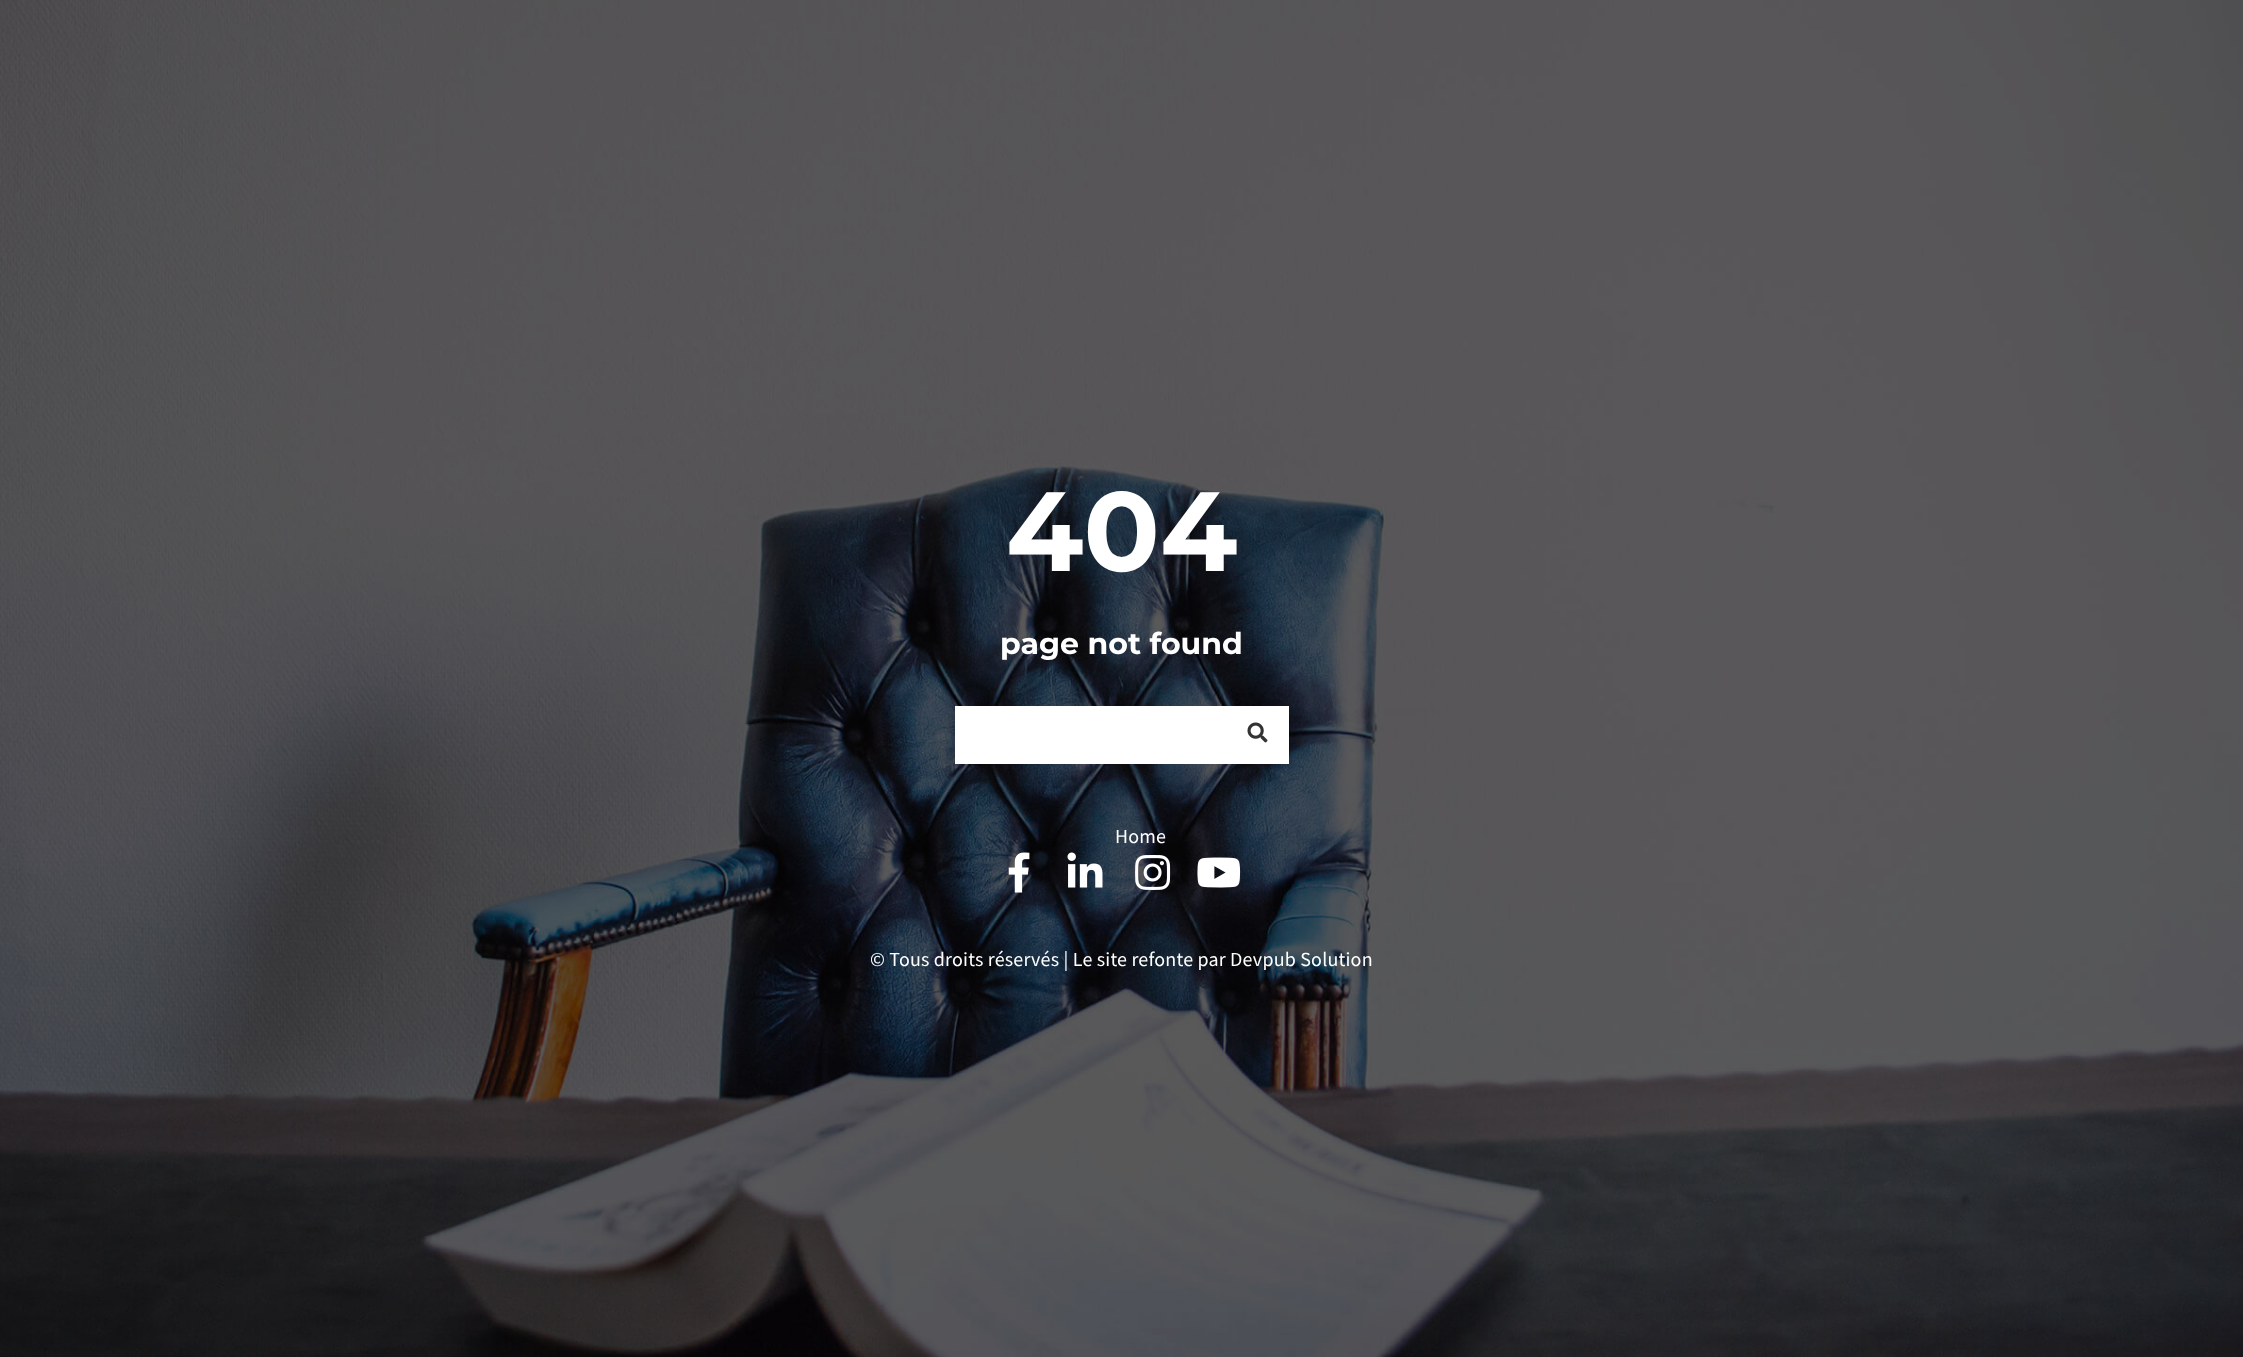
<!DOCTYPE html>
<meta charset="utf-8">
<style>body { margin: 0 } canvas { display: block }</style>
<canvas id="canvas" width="2243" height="1357"></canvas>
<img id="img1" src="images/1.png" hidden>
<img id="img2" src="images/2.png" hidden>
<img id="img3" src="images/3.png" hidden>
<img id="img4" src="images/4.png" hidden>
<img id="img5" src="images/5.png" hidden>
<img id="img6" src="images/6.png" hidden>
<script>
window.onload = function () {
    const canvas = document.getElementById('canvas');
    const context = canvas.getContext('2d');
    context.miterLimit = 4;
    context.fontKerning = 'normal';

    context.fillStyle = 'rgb(255, 255, 255)';
    context.fillRect(0, 0, 2243, 1357);
    context.drawImage(document.getElementById('img1'), 0, 0, 2243, 1357);
    context.fillRect(955, 706, 334, 58);
    context.drawImage(document.getElementById('img2'), 1247, 722, 21, 21);
    context.drawImage(document.getElementById('img3'), 1008, 852, 22, 41);
    context.drawImage(document.getElementById('img4'), 1067, 852, 36, 36);
    context.drawImage(document.getElementById('img5'), 1135, 855, 36, 35);
    context.drawImage(document.getElementById('img6'), 1197, 857, 44, 31);
    context.font = 'bold 112.5px Montserrat';
    context.fillText('404', 1006, 571);
    context.font = 'bold 30px Montserrat';
    context.fillText('page not found', 1000, 654);
    context.letterSpacing = '0.2px';
    context.font = '20px Source Sans Pro';
    context.fillText('Home', 1115, 843);
    context.fillText('© Tous droits réservés | Le site refonte par Devpub Solution', 870, 966);
};
</script>
